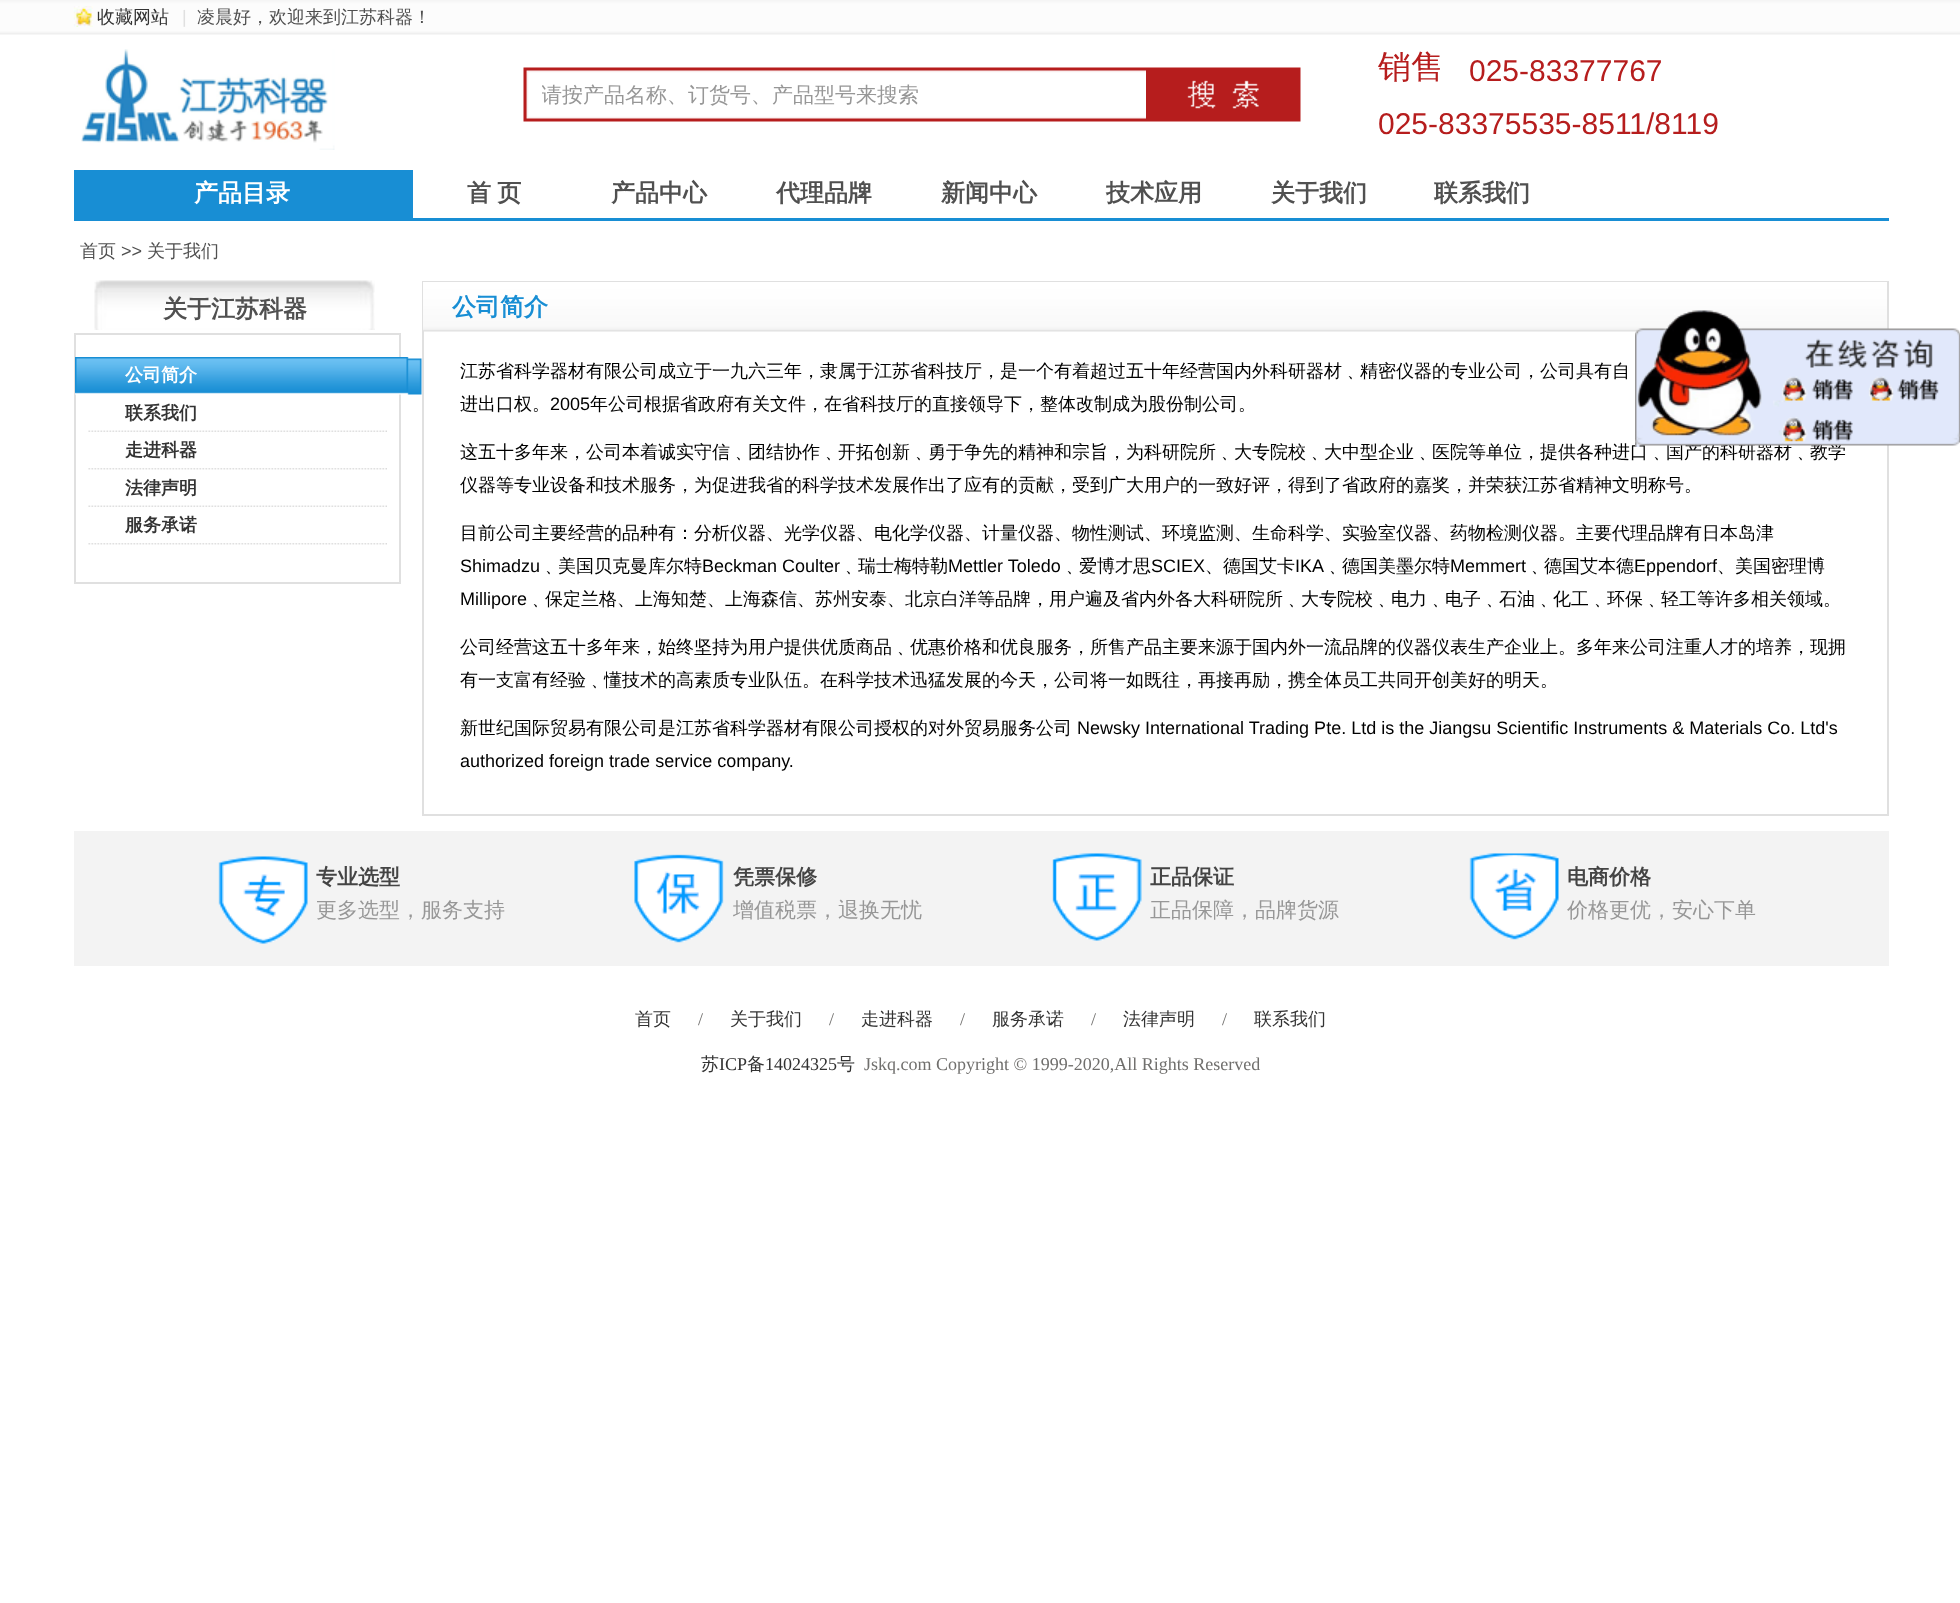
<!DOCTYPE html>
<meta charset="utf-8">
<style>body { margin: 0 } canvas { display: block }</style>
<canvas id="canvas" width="1960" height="1603"></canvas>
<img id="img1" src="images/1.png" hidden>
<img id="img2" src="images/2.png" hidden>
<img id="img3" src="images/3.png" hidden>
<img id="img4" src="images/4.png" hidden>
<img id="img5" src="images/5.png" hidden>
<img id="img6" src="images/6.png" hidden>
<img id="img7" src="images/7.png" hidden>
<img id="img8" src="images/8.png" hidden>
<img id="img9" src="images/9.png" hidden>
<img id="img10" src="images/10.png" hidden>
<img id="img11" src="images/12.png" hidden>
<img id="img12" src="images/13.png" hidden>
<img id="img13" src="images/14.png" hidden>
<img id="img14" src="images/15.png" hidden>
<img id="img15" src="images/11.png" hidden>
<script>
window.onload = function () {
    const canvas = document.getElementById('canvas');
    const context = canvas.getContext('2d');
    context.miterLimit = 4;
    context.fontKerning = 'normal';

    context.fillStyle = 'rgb(255, 255, 255)';
    context.fillRect(0, 0, 1960, 1603);
    context.drawImage(document.getElementById('img1'), 0, 0, 1960, 35);
    context.drawImage(document.getElementById('img2'), 73, 6, 20, 21);
    context.drawImage(document.getElementById('img3'), 81, 49, 254, 101);
    context.drawImage(document.getElementById('img4'), 523, 67, 623, 55);
    context.drawImage(document.getElementById('img5'), 1146, 67, 155, 55);
    context.fillStyle = 'rgb(24, 142, 212)';
    context.fillRect(413, 218, 1476, 3);
    context.fillRect(74, 170, 339, 51);
    context.drawImage(document.getElementById('img6'), 94, 280, 281, 50);
    context.strokeStyle = 'rgb(224, 224, 224)';
    context.lineWidth = 2;
    context.strokeRect(75, 334, 325, 249);
    context.drawImage(document.getElementById('img7'), 75, 357, 347, 38);
    context.drawImage(document.getElementById('img8'), 88, 430, 299, 2);
    context.drawImage(document.getElementById('img9'), 88, 468, 299, 2);
    context.drawImage(document.getElementById('img8'), 88, 505, 299, 2);
    context.drawImage(document.getElementById('img9'), 88, 543, 299, 2);
    context.strokeRect(423, 282, 1465, 533);
    context.drawImage(document.getElementById('img10'), 423, 282, 1464, 50);
    context.fillStyle = 'rgb(243, 243, 243)';
    context.fillRect(74, 831, 1815, 135);
    context.drawImage(document.getElementById('img11'), 218, 856, 90, 88);
    context.drawImage(document.getElementById('img12'), 634, 854, 90, 89);
    context.drawImage(document.getElementById('img13'), 1052, 853, 90, 88);
    context.drawImage(document.getElementById('img14'), 1469, 853, 90, 87);
    context.font = '500 18px WenQuanYi Zen Hei';
    context.fillStyle = 'rgb(51, 51, 51)';
    context.fillText('收藏网站', 97, 23);
    context.font = '18px Liberation Sans';
    context.fillStyle = 'rgb(224, 224, 224)';
    context.fillText('|', 182, 23);
    context.font = '500 18px WenQuanYi Zen Hei';
    context.fillStyle = 'rgb(80, 80, 80)';
    context.fillText('凌晨好，欢迎来到江苏科器！', 197, 23);
    context.save();
    context.beginPath();
    context.rect(542, 68, 604, 54);
    context.clip();
    context.font = '500 21px WenQuanYi Zen Hei';
    context.fillStyle = 'rgb(151, 151, 151)';
    context.fillText('请按产品名称、订货号、产品型号来搜索', 541, 102);
    context.restore();
    context.font = '500 33px WenQuanYi Zen Hei';
    context.fillStyle = 'rgb(182, 29, 29)';
    context.fillText('销售', 1378, 78);
    context.font = '30px Liberation Sans';
    context.fillText('025-83377767', 1469, 81);
    context.fillText('025-83375535-8511/8119', 1378, 134);
    context.font = 'bold 24px WenQuanYi Zen Hei';
    context.fillStyle = 'rgb(255, 255, 255)';
    context.fillText('产品目录', 194, 201);
    context.wordSpacing = '-1px';
    context.fillStyle = 'rgb(80, 80, 80)';
    context.fillText('首 页', 467, 201);
    context.wordSpacing = '0px';
    context.fillText('产品中心', 611, 201);
    context.fillText('代理品牌', 776, 201);
    context.fillText('新闻中心', 941, 201);
    context.fillText('技术应用', 1106, 201);
    context.fillText('关于我们', 1271, 201);
    context.fillText('联系我们', 1434, 201);
    context.font = '500 18px WenQuanYi Zen Hei';
    context.fillText('首页', 80, 257);
    context.font = '18px Liberation Sans';
    context.fillText('>>', 121, 257);
    context.font = '500 18px WenQuanYi Zen Hei';
    context.fillText('关于我们', 147, 257);
    context.font = 'bold 24px WenQuanYi Zen Hei';
    context.fillText('关于江苏科器', 163, 317);
    context.font = 'bold 18px WenQuanYi Zen Hei';
    context.fillStyle = 'rgb(255, 255, 255)';
    context.fillText('公司简介', 125, 381);
    context.fillStyle = 'rgb(51, 51, 51)';
    context.fillText('联系我们', 125, 419);
    context.fillText('走进科器', 125, 456);
    context.fillText('法律声明', 125, 494);
    context.fillText('服务承诺', 125, 531);
    context.font = 'bold 24px WenQuanYi Zen Hei';
    context.fillStyle = 'rgb(24, 142, 212)';
    context.fillText('公司简介', 452, 315);
    context.font = '500 18px WenQuanYi Zen Hei';
    context.fillStyle = 'rgb(0, 0, 0)';
    context.fillText('江苏省科学器材有限公司成立于一九六三年，隶属于江苏省科技厅，是一个有着超过五十年经营国内外科研器材﹑精密仪器的专业公司，公司具有自', 460, 377);
    context.fillText('进出口权。', 460, 410);
    context.font = '18px Liberation Sans';
    context.fillText('2005', 550, 410);
    context.font = '500 18px WenQuanYi Zen Hei';
    context.fillText('年公司根据省政府有关文件，在省科技厅的直接领导下，整体改制成为股份制公司。', 590, 410);
    context.fillText('这五十多年来，公司本着诚实守信﹑团结协作﹑开拓创新﹑勇于争先的精神和宗旨，为科研院所﹑大专院校﹑大中型企业﹑医院等单位，提供各种进口﹑国产的科研器材﹑教学', 460, 458);
    context.fillText('仪器等专业设备和技术服务，为促进我省的科学技术发展作出了应有的贡献，受到广大用户的一致好评，得到了省政府的嘉奖，并荣获江苏省精神文明称号。', 460, 491);
    context.fillText('目前公司主要经营的品种有：分析仪器、光学仪器、电化学仪器、计量仪器、物性测试、环境监测、生命科学、实验室仪器、药物检测仪器。主要代理品牌有日本岛津', 460, 539);
    context.font = '18px Liberation Sans';
    context.fillText('Shimadzu', 460, 572);
    context.font = '500 18px WenQuanYi Zen Hei';
    context.fillText('﹑美国贝克曼库尔特', 540, 572);
    context.font = '18px Liberation Sans';
    context.fillText('Beckman Coulter', 702, 572);
    context.font = '500 18px WenQuanYi Zen Hei';
    context.fillText('﹑瑞士梅特勒', 840, 572);
    context.font = '18px Liberation Sans';
    context.fillText('Mettler Toledo', 948, 572);
    context.font = '500 18px WenQuanYi Zen Hei';
    context.fillText('﹑爱博才思', 1061, 572);
    context.font = '18px Liberation Sans';
    context.fillText('SCIEX', 1151, 572);
    context.font = '500 18px WenQuanYi Zen Hei';
    context.fillText('、德国艾卡', 1205, 572);
    context.font = '18px Liberation Sans';
    context.fillText('IKA', 1295, 572);
    context.font = '500 18px WenQuanYi Zen Hei';
    context.fillText('﹑德国美墨尔特', 1324, 572);
    context.font = '18px Liberation Sans';
    context.fillText('Memmert', 1450, 572);
    context.font = '500 18px WenQuanYi Zen Hei';
    context.fillText('﹑德国艾本德', 1526, 572);
    context.font = '18px Liberation Sans';
    context.fillText('Eppendorf', 1634, 572);
    context.font = '500 18px WenQuanYi Zen Hei';
    context.fillText('、美国密理博', 1717, 572);
    context.font = '18px Liberation Sans';
    context.fillText('Millipore', 460, 605);
    context.font = '500 18px WenQuanYi Zen Hei';
    context.fillText('﹑保定兰格、上海知楚、上海森信、苏州安泰、北京白洋等品牌，用户遍及省内外各大科研院所﹑大专院校﹑电力﹑电子﹑石油﹑化工﹑环保﹑轻工等许多相关领域。', 527, 605);
    context.fillText('公司经营这五十多年来，始终坚持为用户提供优质商品﹑优惠价格和优良服务，所售产品主要来源于国内外一流品牌的仪器仪表生产企业上。多年来公司注重人才的培养，现拥', 460, 653);
    context.fillText('有一支富有经验﹑懂技术的高素质专业队伍。在科学技术迅猛发展的今天，公司将一如既往，再接再励，携全体员工共同开创美好的明天。', 460, 686);
    context.fillText('新世纪国际贸易有限公司是江苏省科学器材有限公司授权的对外贸易服务公司', 460, 734);
    context.font = '18px Liberation Sans';
    context.fillText('Newsky International Trading Pte. Ltd is the Jiangsu Scientific Instruments & Materials Co. Ltd\'s', 1077, 734);
    context.fillText('authorized foreign trade service company.', 460, 767);
    context.drawImage(document.getElementById('img15'), 1635, 310, 325, 137);
    context.font = 'bold 21px WenQuanYi Zen Hei';
    context.fillStyle = 'rgb(68, 68, 68)';
    context.fillText('专业选型', 316, 884);
    context.font = '500 21px WenQuanYi Zen Hei';
    context.fillStyle = 'rgb(151, 151, 151)';
    context.fillText('更多选型，服务支持', 316, 917);
    context.font = 'bold 21px WenQuanYi Zen Hei';
    context.fillStyle = 'rgb(68, 68, 68)';
    context.fillText('凭票保修', 733, 884);
    context.font = '500 21px WenQuanYi Zen Hei';
    context.fillStyle = 'rgb(151, 151, 151)';
    context.fillText('增值税票，退换无忧', 733, 917);
    context.font = 'bold 21px WenQuanYi Zen Hei';
    context.fillStyle = 'rgb(68, 68, 68)';
    context.fillText('正品保证', 1150, 884);
    context.font = '500 21px WenQuanYi Zen Hei';
    context.fillStyle = 'rgb(151, 151, 151)';
    context.fillText('正品保障，品牌货源', 1150, 917);
    context.font = 'bold 21px WenQuanYi Zen Hei';
    context.fillStyle = 'rgb(68, 68, 68)';
    context.fillText('电商价格', 1567, 884);
    context.font = '500 21px WenQuanYi Zen Hei';
    context.fillStyle = 'rgb(151, 151, 151)';
    context.fillText('价格更优，安心下单', 1567, 917);
    context.font = '500 18px WenQuanYi Zen Hei';
    context.fillStyle = 'rgb(51, 51, 51)';
    context.fillText('首页', 635, 1025);
    context.font = '18px Liberation Serif';
    context.fillStyle = 'rgb(112, 111, 109)';
    context.fillText('/', 698, 1025);
    context.font = '500 18px WenQuanYi Zen Hei';
    context.fillStyle = 'rgb(51, 51, 51)';
    context.fillText('关于我们', 730, 1025);
    context.font = '18px Liberation Serif';
    context.fillStyle = 'rgb(112, 111, 109)';
    context.fillText('/', 829, 1025);
    context.font = '500 18px WenQuanYi Zen Hei';
    context.fillStyle = 'rgb(51, 51, 51)';
    context.fillText('走进科器', 861, 1025);
    context.font = '18px Liberation Serif';
    context.fillStyle = 'rgb(112, 111, 109)';
    context.fillText('/', 960, 1025);
    context.font = '500 18px WenQuanYi Zen Hei';
    context.fillStyle = 'rgb(51, 51, 51)';
    context.fillText('服务承诺', 992, 1025);
    context.font = '18px Liberation Serif';
    context.fillStyle = 'rgb(112, 111, 109)';
    context.fillText('/', 1091, 1025);
    context.font = '500 18px WenQuanYi Zen Hei';
    context.fillStyle = 'rgb(51, 51, 51)';
    context.fillText('法律声明', 1123, 1025);
    context.font = '18px Liberation Serif';
    context.fillStyle = 'rgb(112, 111, 109)';
    context.fillText('/', 1222, 1025);
    context.font = '500 18px WenQuanYi Zen Hei';
    context.fillStyle = 'rgb(51, 51, 51)';
    context.fillText('联系我们', 1254, 1025);
    context.fillText('苏', 701, 1070);
    context.font = '18px Liberation Serif';
    context.fillText('ICP', 719, 1070);
    context.font = '500 18px WenQuanYi Zen Hei';
    context.fillText('备', 747, 1070);
    context.font = '18px Liberation Serif';
    context.fillText('14024325', 765, 1070);
    context.font = '500 18px WenQuanYi Zen Hei';
    context.fillText('号', 837, 1070);
    context.font = '18px Liberation Serif';
    context.fillStyle = 'rgb(112, 111, 109)';
    context.fillText('Jskq.com Copyright © 1999-2020,All Rights Reserved', 864, 1070);
};
</script>
